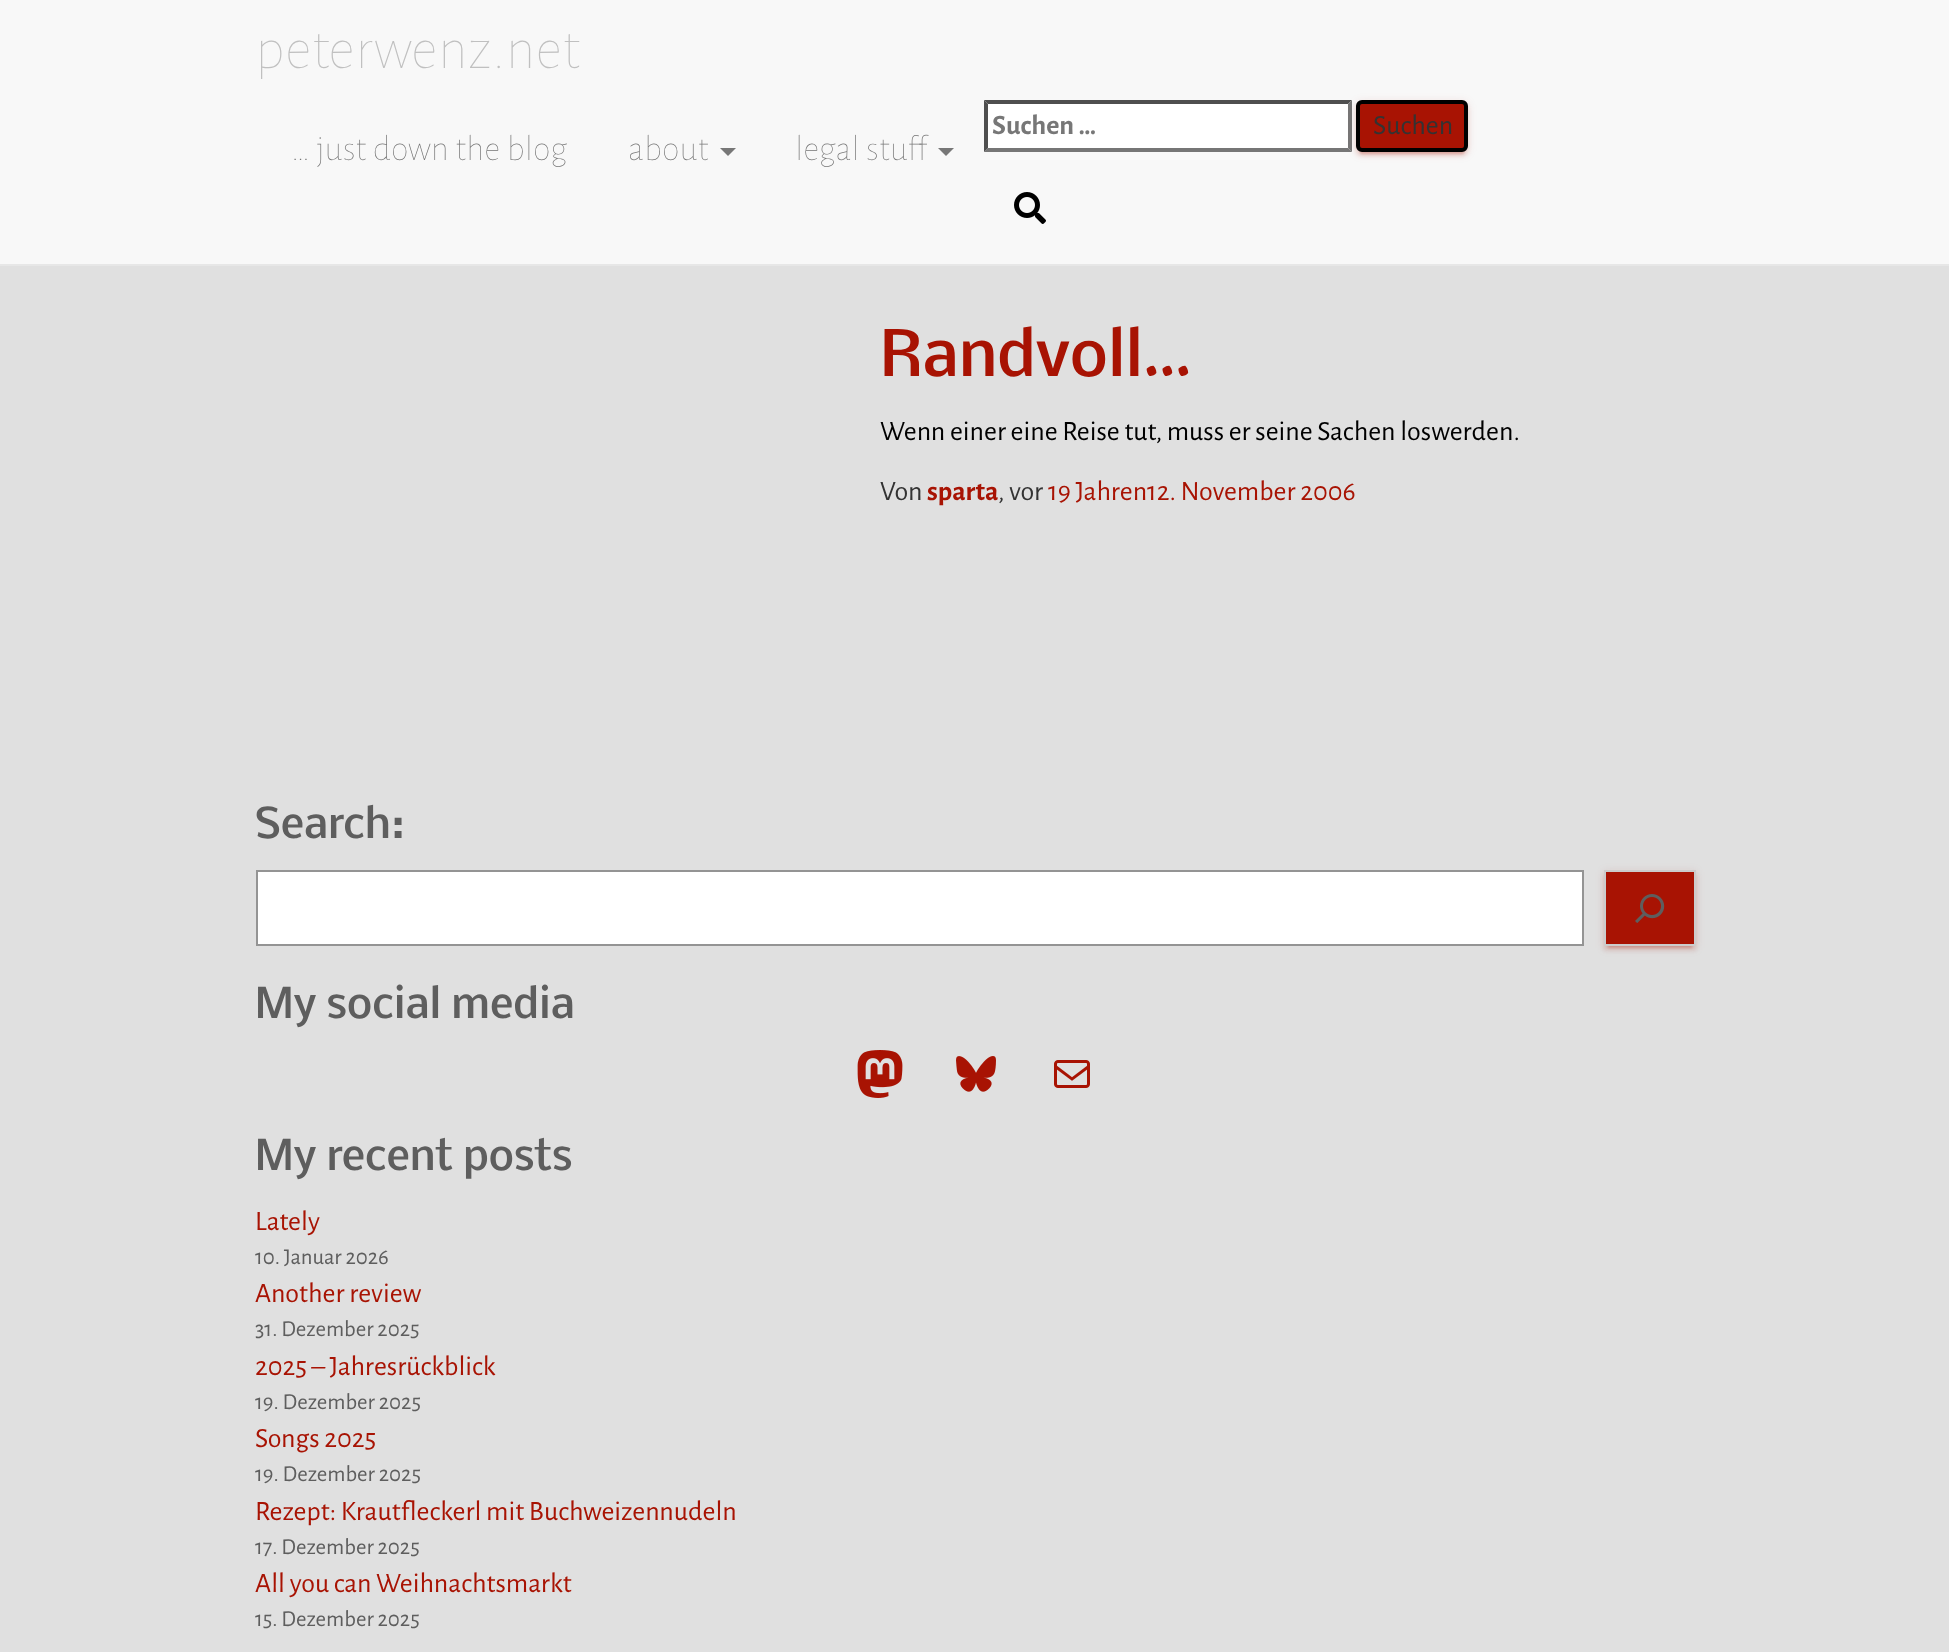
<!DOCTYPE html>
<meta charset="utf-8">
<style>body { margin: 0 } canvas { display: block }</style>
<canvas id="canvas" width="1949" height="1652"></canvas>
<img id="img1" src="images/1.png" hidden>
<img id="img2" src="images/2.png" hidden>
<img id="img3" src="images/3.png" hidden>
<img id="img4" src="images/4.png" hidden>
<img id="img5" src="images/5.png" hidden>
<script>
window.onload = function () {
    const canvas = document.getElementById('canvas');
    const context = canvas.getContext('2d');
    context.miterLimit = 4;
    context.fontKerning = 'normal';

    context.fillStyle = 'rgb(224, 224, 224)';
    context.fillRect(0, 0, 1949, 1652);
    context.fillStyle = 'rgb(248, 248, 248)';
    context.fillRect(0, 0, 1949, 264);
    context.fillStyle = 'rgb(231, 231, 231)';
    context.fillRect(0, 264, 1949, 2);
    context.fillStyle = 'rgb(255, 255, 255)';
    context.fillRect(984, 100, 368, 52);
    context.fillStyle = 'rgb(79, 79, 79)';
    context.beginPath();
    context.moveTo(984, 100);
    context.lineTo(1352, 100);
    context.lineTo(1348, 104);
    context.lineTo(988, 104);
    context.closePath();
    context.fill();
    context.fillStyle = 'rgb(118, 118, 118)';
    context.beginPath();
    context.moveTo(1352, 100);
    context.lineTo(1352, 152);
    context.lineTo(1348, 148);
    context.lineTo(1348, 104);
    context.closePath();
    context.fill();
    context.beginPath();
    context.moveTo(1352, 152);
    context.lineTo(984, 152);
    context.lineTo(988, 148);
    context.lineTo(1348, 148);
    context.closePath();
    context.fill();
    context.fillStyle = 'rgb(79, 79, 79)';
    context.beginPath();
    context.moveTo(984, 152);
    context.lineTo(984, 100);
    context.lineTo(988, 104);
    context.lineTo(988, 148);
    context.closePath();
    context.fill();
    context.fillStyle = 'rgba(168, 19, 3, 0.12)';
    context.filter = 'blur(5px)';
    context.beginPath();
    context.roundRect(1356, 102, 112, 52, 6);
    context.fill();
    context.filter = 'none';
    context.fillStyle = 'rgba(168, 19, 3, 0.2)';
    context.filter = 'blur(1px)';
    context.beginPath();
    context.roundRect(1360, 110, 104, 44, 2);
    context.fill();
    context.filter = 'none';
    context.fillStyle = 'rgba(168, 19, 3, 0.14)';
    context.filter = 'blur(2px)';
    context.beginPath();
    context.roundRect(1356, 104, 112, 52, 6);
    context.fill();
    context.filter = 'none';
    context.fillStyle = 'rgb(168, 19, 3)';
    context.beginPath();
    context.roundRect(1358, 102, 108, 48, 4);
    context.fill();
    context.strokeStyle = 'rgb(0, 0, 0)';
    context.lineWidth = 4;
    context.stroke();
    context.drawImage(document.getElementById('img1'), 1014, 192, 32, 32);
    context.fillStyle = 'rgb(119, 119, 119)';
    context.beginPath();
    context.moveTo(720, 148);
    context.lineTo(736, 148);
    context.lineTo(728, 156);
    context.closePath();
    context.fill();
    context.beginPath();
    context.moveTo(938, 148);
    context.lineTo(954, 148);
    context.lineTo(946, 156);
    context.closePath();
    context.fill();
    context.fillStyle = 'rgb(255, 255, 255)';
    context.beginPath();
    context.rect(257, 871, 1326, 74);
    context.fill();
    context.strokeStyle = 'rgb(148, 148, 148)';
    context.lineWidth = 2;
    context.stroke();
    context.fillStyle = 'rgba(168, 19, 3, 0.12)';
    context.filter = 'blur(5px)';
    context.beginPath();
    context.rect(1604, 872, 92, 76);
    context.fill();
    context.filter = 'none';
    context.fillStyle = 'rgba(168, 19, 3, 0.2)';
    context.filter = 'blur(1px)';
    context.beginPath();
    context.rect(1608, 880, 84, 68);
    context.fill();
    context.filter = 'none';
    context.fillStyle = 'rgba(168, 19, 3, 0.14)';
    context.filter = 'blur(2px)';
    context.beginPath();
    context.rect(1604, 874, 92, 76);
    context.fill();
    context.filter = 'none';
    context.fillStyle = 'rgb(168, 19, 3)';
    context.beginPath();
    context.rect(1605, 871, 90, 74);
    context.fill();
    context.strokeStyle = 'rgb(204, 204, 204)';
    context.stroke();
    context.drawImage(document.getElementById('img2'), 1635, 894, 30, 29);
    context.drawImage(document.getElementById('img3'), 857, 1050, 46, 48);
    context.drawImage(document.getElementById('img4'), 956, 1056, 40, 36);
    context.drawImage(document.getElementById('img5'), 1054, 1060, 36, 28);
    context.font = '200 60px Alegreya Sans';
    context.fillStyle = 'rgb(192, 192, 192)';
    context.fillText('peterwenz.net', 255, 68);
    context.font = 'bold 28px Alegreya Sans';
    context.fillStyle = 'rgb(119, 119, 119)';
    context.fillText('Suchen …', 992, 134);
    context.font = '28px Alegreya Sans';
    context.fillStyle = 'rgb(51, 51, 51)';
    context.fillText('Suchen', 1373, 134);
    context.font = '200 36px Alegreya Sans';
    context.fillStyle = 'rgb(119, 119, 119)';
    context.fillText('… just down the blog', 291, 160);
    context.fillText('about', 628, 160);
    context.fillText('legal stuff', 795, 160);
    context.font = '500 60px Nobile';
    context.fillStyle = 'rgb(168, 19, 3)';
    context.fillText('Randvoll…', 880, 376);
    context.font = '28px Alegreya Sans';
    context.fillStyle = 'rgb(0, 0, 0)';
    context.fillText('Wenn einer eine Reise tut, muss er seine Sachen loswerden.', 880, 440);
    context.fillStyle = 'rgb(51, 51, 51)';
    context.fillText('Von', 880, 500);
    context.font = 'bold 28px Alegreya Sans';
    context.fillStyle = 'rgb(168, 19, 3)';
    context.fillText('sparta', 927, 500);
    context.font = '28px Alegreya Sans';
    context.fillStyle = 'rgb(51, 51, 51)';
    context.fillText(', vor', 998, 500);
    context.fillStyle = 'rgb(168, 19, 3)';
    context.fillText('19 Jahren12. November 2006', 1048, 500);
    context.font = '500 40px Nobile';
    context.fillStyle = 'rgb(94, 94, 94)';
    context.fillText('Search:', 255, 838);
    context.fillText('My social media', 255, 1018);
    context.fillText('My recent posts', 255, 1170);
    context.font = '28px Alegreya Sans';
    context.fillStyle = 'rgb(168, 19, 3)';
    context.fillText('Lately', 255, 1230);
    context.font = '22.75px Alegreya Sans';
    context.fillStyle = 'rgb(94, 94, 94)';
    context.fillText('10. Januar 2026', 255, 1264);
    context.font = '28px Alegreya Sans';
    context.fillStyle = 'rgb(168, 19, 3)';
    context.fillText('Another review', 255, 1302);
    context.font = '22.75px Alegreya Sans';
    context.fillStyle = 'rgb(94, 94, 94)';
    context.fillText('31. Dezember 2025', 255, 1336);
    context.font = '28px Alegreya Sans';
    context.fillStyle = 'rgb(168, 19, 3)';
    context.fillText('2025 – Jahresrückblick', 255, 1375);
    context.font = '22.75px Alegreya Sans';
    context.fillStyle = 'rgb(94, 94, 94)';
    context.fillText('19. Dezember 2025', 255, 1409);
    context.font = '28px Alegreya Sans';
    context.fillStyle = 'rgb(168, 19, 3)';
    context.fillText('Songs 2025', 255, 1447);
    context.font = '22.75px Alegreya Sans';
    context.fillStyle = 'rgb(94, 94, 94)';
    context.fillText('19. Dezember 2025', 255, 1481);
    context.font = '28px Alegreya Sans';
    context.fillStyle = 'rgb(168, 19, 3)';
    context.fillText('Rezept: Krautfleckerl mit Buchweizennudeln', 255, 1520);
    context.font = '22.75px Alegreya Sans';
    context.fillStyle = 'rgb(94, 94, 94)';
    context.fillText('17. Dezember 2025', 255, 1554);
    context.font = '28px Alegreya Sans';
    context.fillStyle = 'rgb(168, 19, 3)';
    context.fillText('All you can Weihnachtsmarkt', 255, 1592);
    context.font = '22.75px Alegreya Sans';
    context.fillStyle = 'rgb(94, 94, 94)';
    context.fillText('15. Dezember 2025', 255, 1626);
};
</script>
